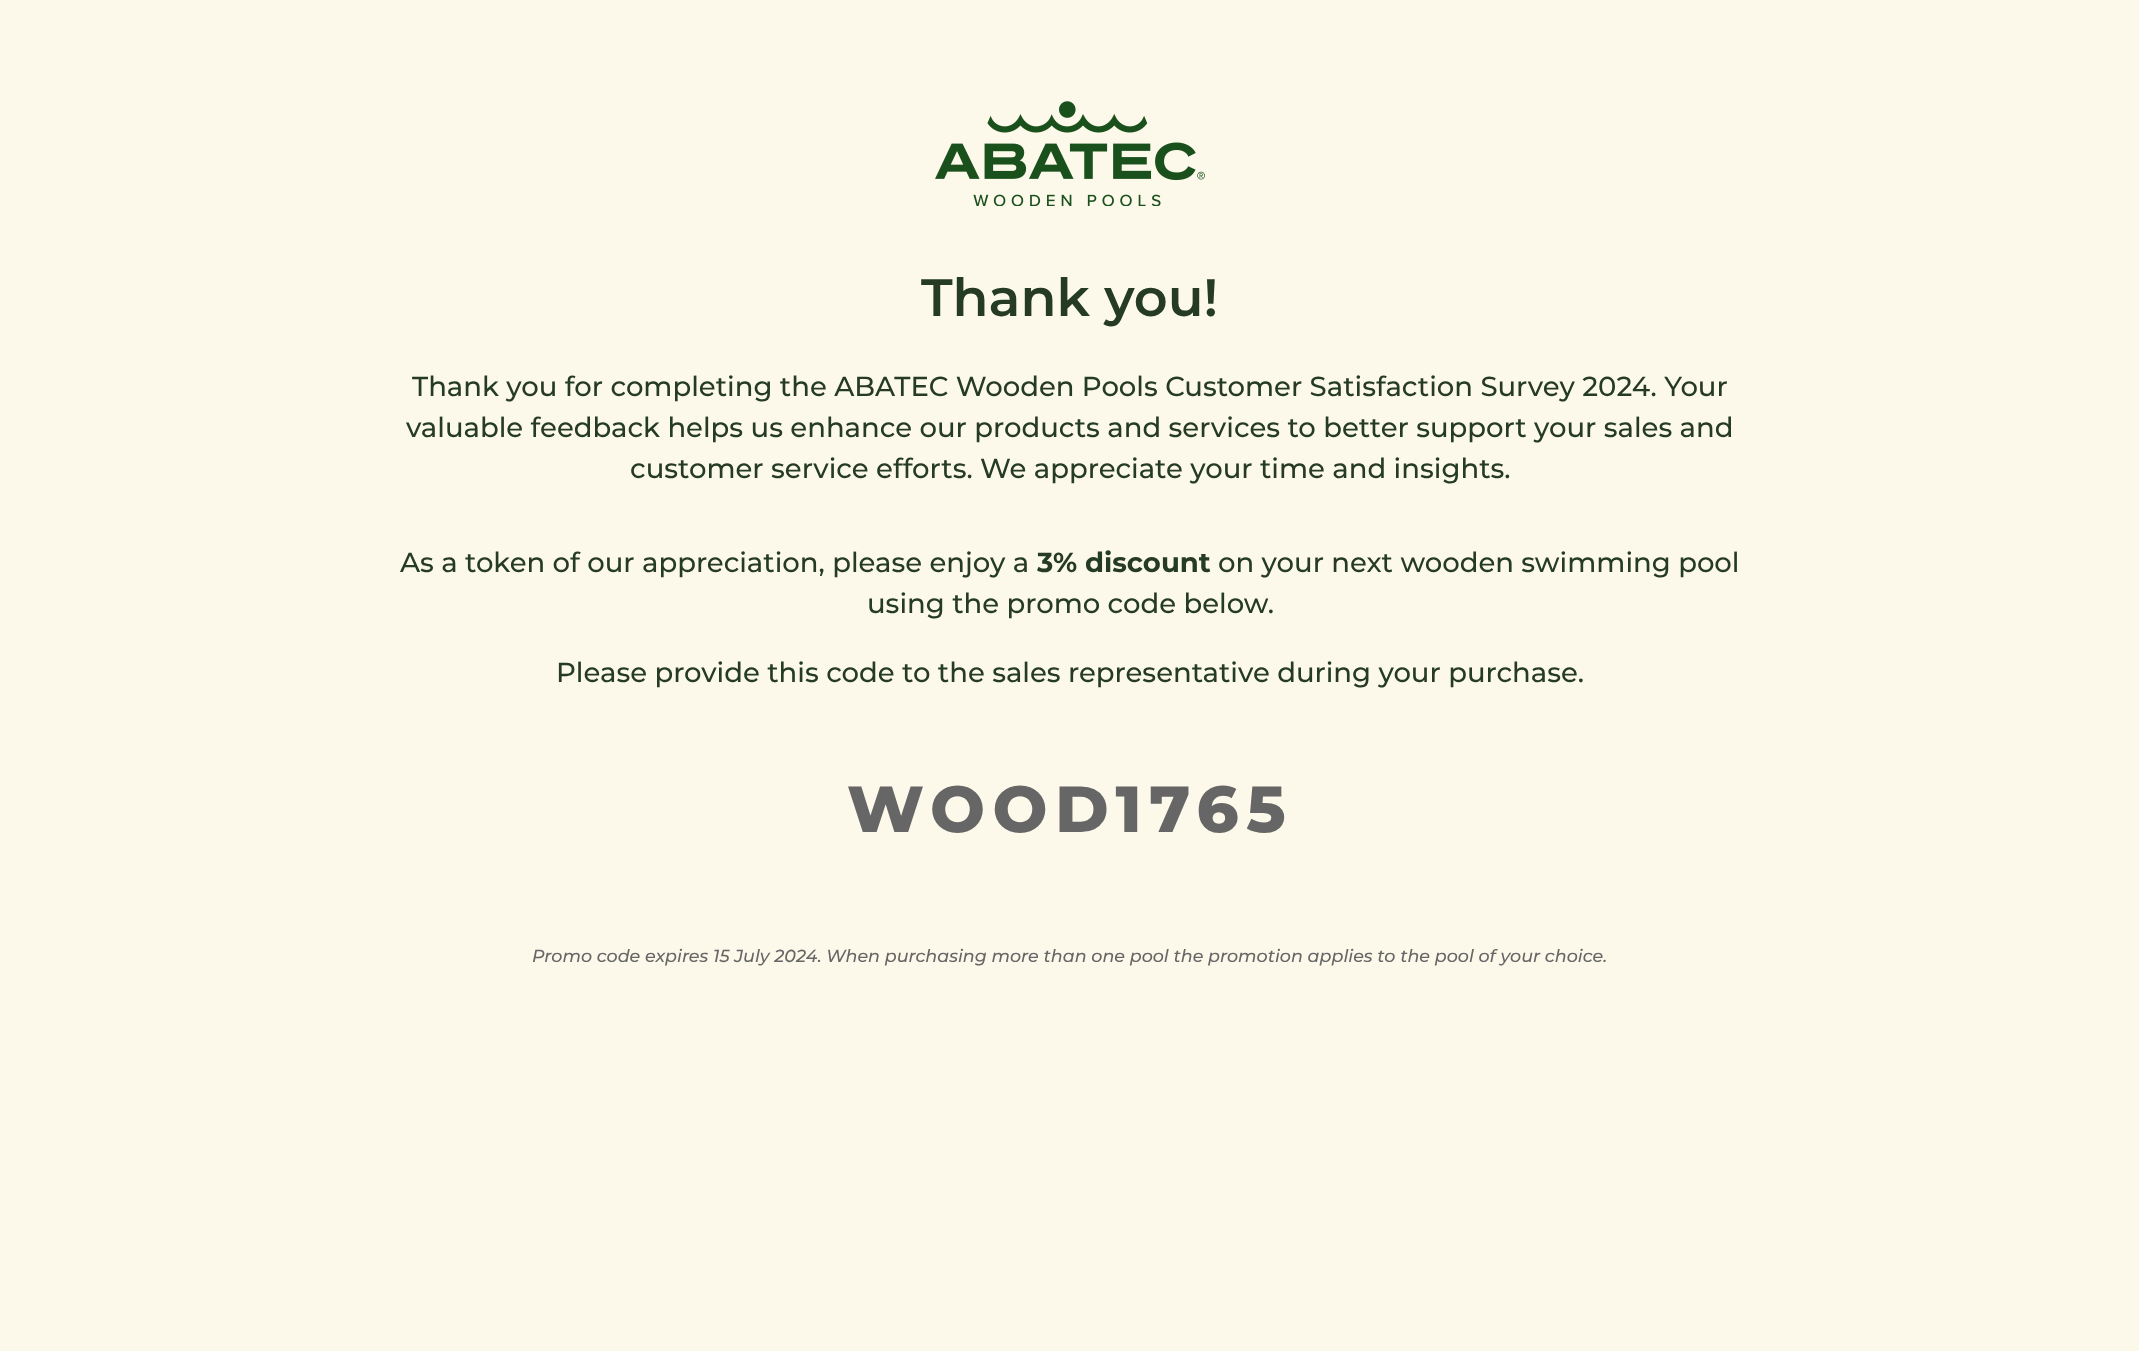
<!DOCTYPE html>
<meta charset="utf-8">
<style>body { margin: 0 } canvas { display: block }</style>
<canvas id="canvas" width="2139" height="1351"></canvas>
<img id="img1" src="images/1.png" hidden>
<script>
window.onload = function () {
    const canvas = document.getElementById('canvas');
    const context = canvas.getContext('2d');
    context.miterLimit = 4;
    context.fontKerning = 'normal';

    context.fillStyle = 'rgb(253, 249, 234)';
    context.fillRect(0, 0, 2139, 1351);
    context.drawImage(document.getElementById('img1'), 935, 101, 270, 105);
    context.font = '600 52.5px Montserrat';
    context.fillStyle = 'rgb(37, 59, 35)';
    context.fillText('Thank you!', 921, 316);
    context.font = '500 27.5px Montserrat';
    context.fillText('Thank you for completing the ABATEC Wooden Pools Customer Satisfaction Survey 2024. Your', 412, 396);
    context.fillText('valuable feedback helps us enhance our products and services to better support your sales and', 406, 437);
    context.fillText('customer service efforts. We appreciate your time and insights.', 630, 478);
    context.fillText('As a token of our appreciation, please enjoy a', 400, 572);
    context.font = 'bold 27.5px Montserrat';
    context.fillText('3% discount', 1037, 572);
    context.font = '500 27.5px Montserrat';
    context.fillText('on your next wooden swimming pool', 1218, 572);
    context.fillText('using the promo code below.', 867, 613);
    context.fillText('Please provide this code to the sales representative during your purchase.', 556, 682);
    context.letterSpacing = '7.5px';
    context.font = '800 65px Montserrat';
    context.fillStyle = 'rgb(102, 102, 102)';
    context.fillText('WOOD1765', 847, 832);
    context.letterSpacing = '0px';
    context.font = 'italic 500 17.5px Montserrat';
    context.fillText('Promo code expires 15 July 2024. When purchasing more than one pool the promotion applies to the pool of your choice.', 532, 962);
};
</script>
